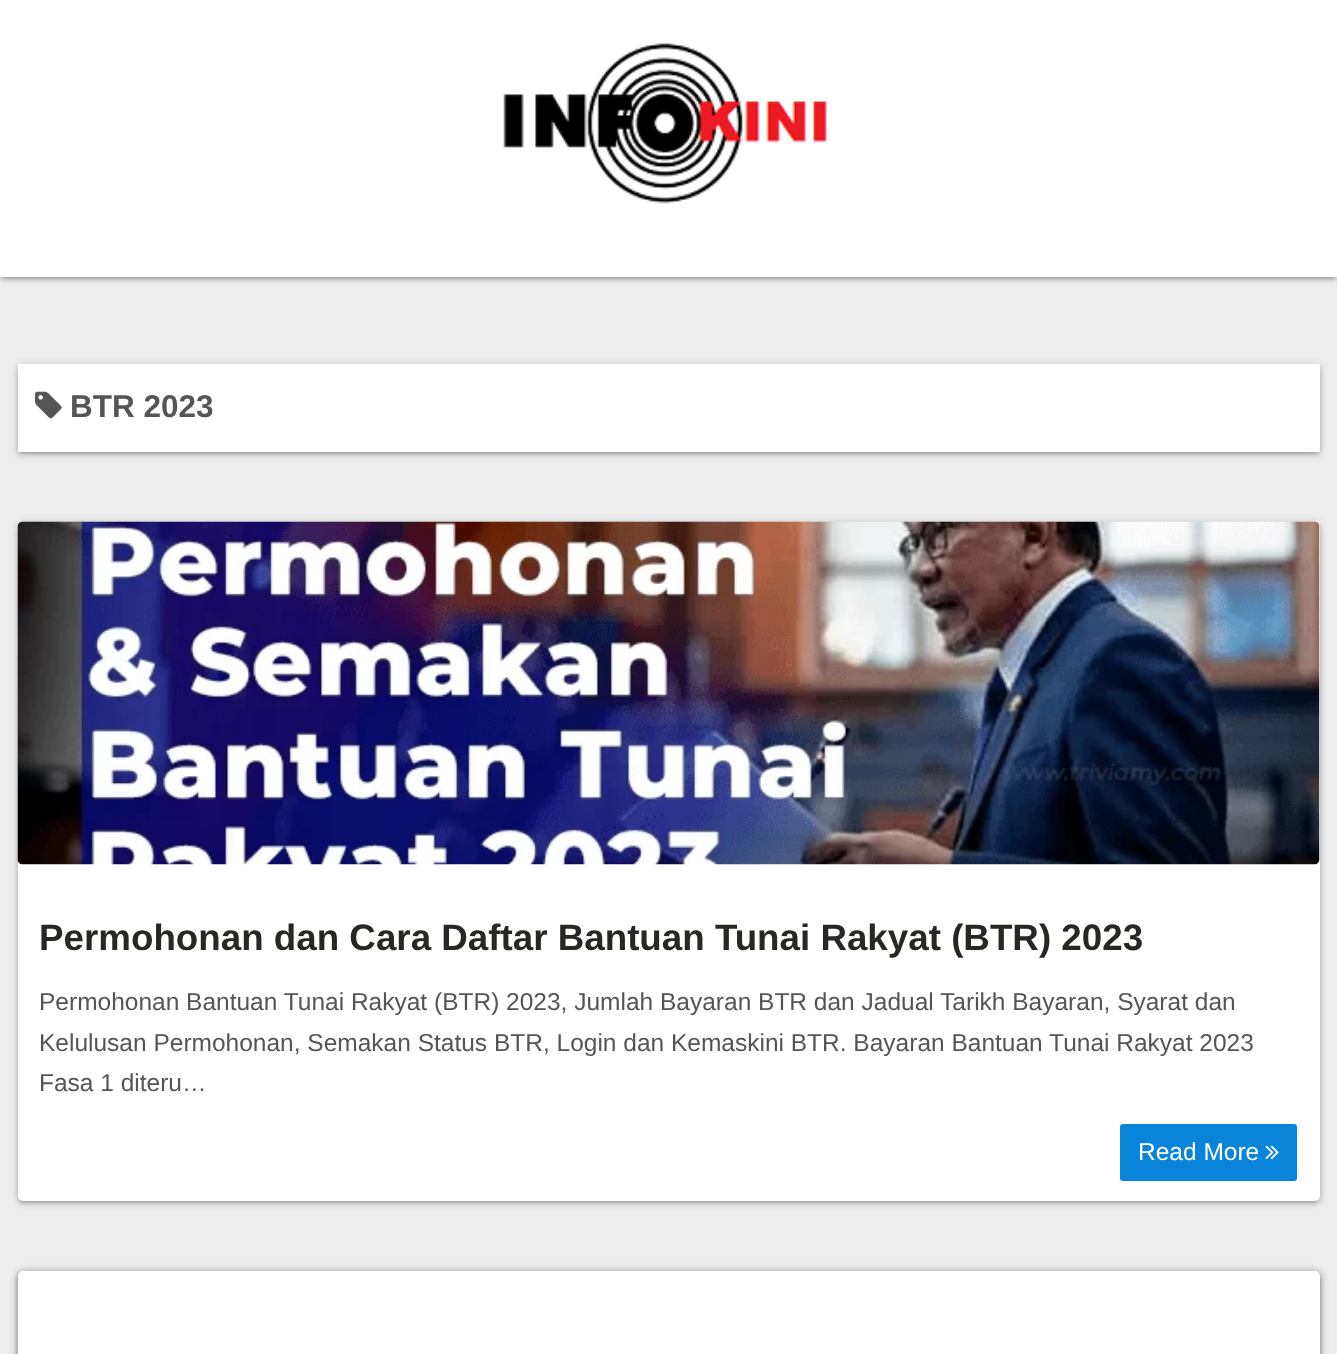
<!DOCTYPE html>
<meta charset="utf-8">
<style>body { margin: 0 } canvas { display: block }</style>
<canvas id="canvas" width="1337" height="1354"></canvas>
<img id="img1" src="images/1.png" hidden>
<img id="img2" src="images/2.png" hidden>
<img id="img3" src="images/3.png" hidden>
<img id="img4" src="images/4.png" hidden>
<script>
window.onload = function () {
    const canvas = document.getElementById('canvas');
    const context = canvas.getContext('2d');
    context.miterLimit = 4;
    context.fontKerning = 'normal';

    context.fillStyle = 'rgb(238, 238, 238)';
    context.fillRect(0, 0, 1337, 1354);
    context.fillStyle = 'rgba(0, 0, 0, 0.2)';
    context.filter = 'blur(4.5px)';
    context.beginPath();
    context.rect(0, 2, 1337, 276);
    context.fill();
    context.filter = 'none';
    context.fillStyle = 'rgba(0, 0, 0, 0.12)';
    context.filter = 'blur(1px)';
    context.beginPath();
    context.rect(4, 9, 1330, 269);
    context.fill();
    context.filter = 'none';
    context.fillStyle = 'rgba(0, 0, 0, 0.14)';
    context.filter = 'blur(2px)';
    context.beginPath();
    context.rect(0, 4, 1337, 276);
    context.fill();
    context.filter = 'none';
    context.fillStyle = 'rgb(255, 255, 255)';
    context.fillRect(0, 0, 1337, 277);
    context.drawImage(document.getElementById('img1'), 503, 43, 325, 161);
    context.fillStyle = 'rgba(0, 0, 0, 0.2)';
    context.filter = 'blur(4.5px)';
    context.beginPath();
    context.rect(18, 366, 1302, 87);
    context.fill();
    context.filter = 'none';
    context.fillStyle = 'rgba(0, 0, 0, 0.12)';
    context.filter = 'blur(1px)';
    context.beginPath();
    context.rect(21, 373, 1295, 80);
    context.fill();
    context.filter = 'none';
    context.fillStyle = 'rgba(0, 0, 0, 0.14)';
    context.filter = 'blur(2px)';
    context.beginPath();
    context.rect(18, 368, 1302, 87);
    context.fill();
    context.filter = 'none';
    context.fillStyle = 'rgb(255, 255, 255)';
    context.fillRect(18, 364, 1302, 88);
    context.drawImage(document.getElementById('img2'), 35, 391, 27, 28);
    context.fillStyle = 'rgba(0, 0, 0, 0.2)';
    context.filter = 'blur(4.5px)';
    context.beginPath();
    context.roundRect(18, 523, 1302, 679, 5);
    context.fill();
    context.filter = 'none';
    context.fillStyle = 'rgba(0, 0, 0, 0.12)';
    context.filter = 'blur(1px)';
    context.beginPath();
    context.roundRect(21, 530, 1295, 672, 2);
    context.fill();
    context.filter = 'none';
    context.fillStyle = 'rgba(0, 0, 0, 0.14)';
    context.filter = 'blur(2px)';
    context.beginPath();
    context.roundRect(18, 525, 1302, 679, 5);
    context.fill();
    context.filter = 'none';
    context.fillStyle = 'rgb(255, 255, 255)';
    context.beginPath();
    context.roundRect(18, 522, 1302, 679, 5);
    context.fill();
    context.drawImage(document.getElementById('img3'), 17, 521, 1303, 344);
    context.fillStyle = 'rgb(8, 133, 216)';
    context.beginPath();
    context.roundRect(1119, 1123, 179, 59, 4);
    context.fill();
    context.strokeStyle = 'rgb(255, 255, 255)';
    context.lineWidth = 2;
    context.stroke();
    context.drawImage(document.getElementById('img4'), 1265, 1145, 14, 15);
    context.fillStyle = 'rgba(0, 0, 0, 0.2)';
    context.filter = 'blur(4.5px)';
    context.beginPath();
    context.roundRect(18, 1272, 1302, 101, 5);
    context.fill();
    context.filter = 'none';
    context.fillStyle = 'rgba(0, 0, 0, 0.14)';
    context.filter = 'blur(2px)';
    context.beginPath();
    context.roundRect(18, 1274, 1302, 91, 5);
    context.fill();
    context.filter = 'none';
    context.fillStyle = 'rgb(255, 255, 255)';
    context.beginPath();
    context.roundRect(18, 1271, 1302, 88, 5);
    context.fill();
    context.save();
    context.beginPath();
    context.moveTo(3, 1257);
    context.lineTo(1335, 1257);
    context.lineTo(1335, 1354);
    context.lineTo(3, 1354);
    context.closePath();
    context.moveTo(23, 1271);
    context.lineTo(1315, 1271);
    context.bezierCurveTo(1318, 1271, 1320, 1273, 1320, 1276);
    context.lineTo(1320, 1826);
    context.bezierCurveTo(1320, 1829, 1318, 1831, 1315, 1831);
    context.lineTo(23, 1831);
    context.bezierCurveTo(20, 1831, 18, 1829, 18, 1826);
    context.lineTo(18, 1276);
    context.bezierCurveTo(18, 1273, 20, 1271, 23, 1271);
    context.closePath();
    context.clip('evenodd');
    context.fillStyle = 'rgba(0, 0, 0, 0.2)';
    context.filter = 'blur(4.5px)';
    context.beginPath();
    context.roundRect(18, 1272, 1302, 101, 5);
    context.fill();
    context.filter = 'none';
    context.restore();
    context.save();
    context.beginPath();
    context.moveTo(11, 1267);
    context.lineTo(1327, 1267);
    context.lineTo(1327, 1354);
    context.lineTo(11, 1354);
    context.closePath();
    context.moveTo(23, 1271);
    context.lineTo(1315, 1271);
    context.bezierCurveTo(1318, 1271, 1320, 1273, 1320, 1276);
    context.lineTo(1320, 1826);
    context.bezierCurveTo(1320, 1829, 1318, 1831, 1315, 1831);
    context.lineTo(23, 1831);
    context.bezierCurveTo(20, 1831, 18, 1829, 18, 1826);
    context.lineTo(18, 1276);
    context.bezierCurveTo(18, 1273, 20, 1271, 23, 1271);
    context.closePath();
    context.clip('evenodd');
    context.fillStyle = 'rgba(0, 0, 0, 0.14)';
    context.filter = 'blur(2px)';
    context.beginPath();
    context.roundRect(18, 1274, 1302, 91, 5);
    context.fill();
    context.filter = 'none';
    context.restore();
    context.font = 'bold 31.5px Liberation Sans';
    context.fillStyle = 'rgb(85, 85, 85)';
    context.fillText('BTR 2023', 70, 417);
    context.font = 'bold 36.75px Liberation Sans';
    context.fillStyle = 'rgb(39, 40, 34)';
    context.fillText('Permohonan dan Cara Daftar Bantuan Tunai Rakyat (BTR) 2023', 39, 950);
    context.font = '24.5px Liberation Sans';
    context.fillStyle = 'rgb(85, 85, 85)';
    context.fillText('Permohonan Bantuan Tunai Rakyat (BTR) 2023, Jumlah Bayaran BTR dan Jadual Tarikh Bayaran, Syarat dan', 39, 1010);
    context.fillText('Kelulusan Permohonan, Semakan Status BTR, Login dan Kemaskini BTR. Bayaran Bantuan Tunai Rakyat 2023', 39, 1051);
    context.fillText('Fasa 1 diteru…', 39, 1091);
    context.fillStyle = 'rgb(255, 255, 255)';
    context.fillText('Read More', 1138, 1160);
};
</script>
